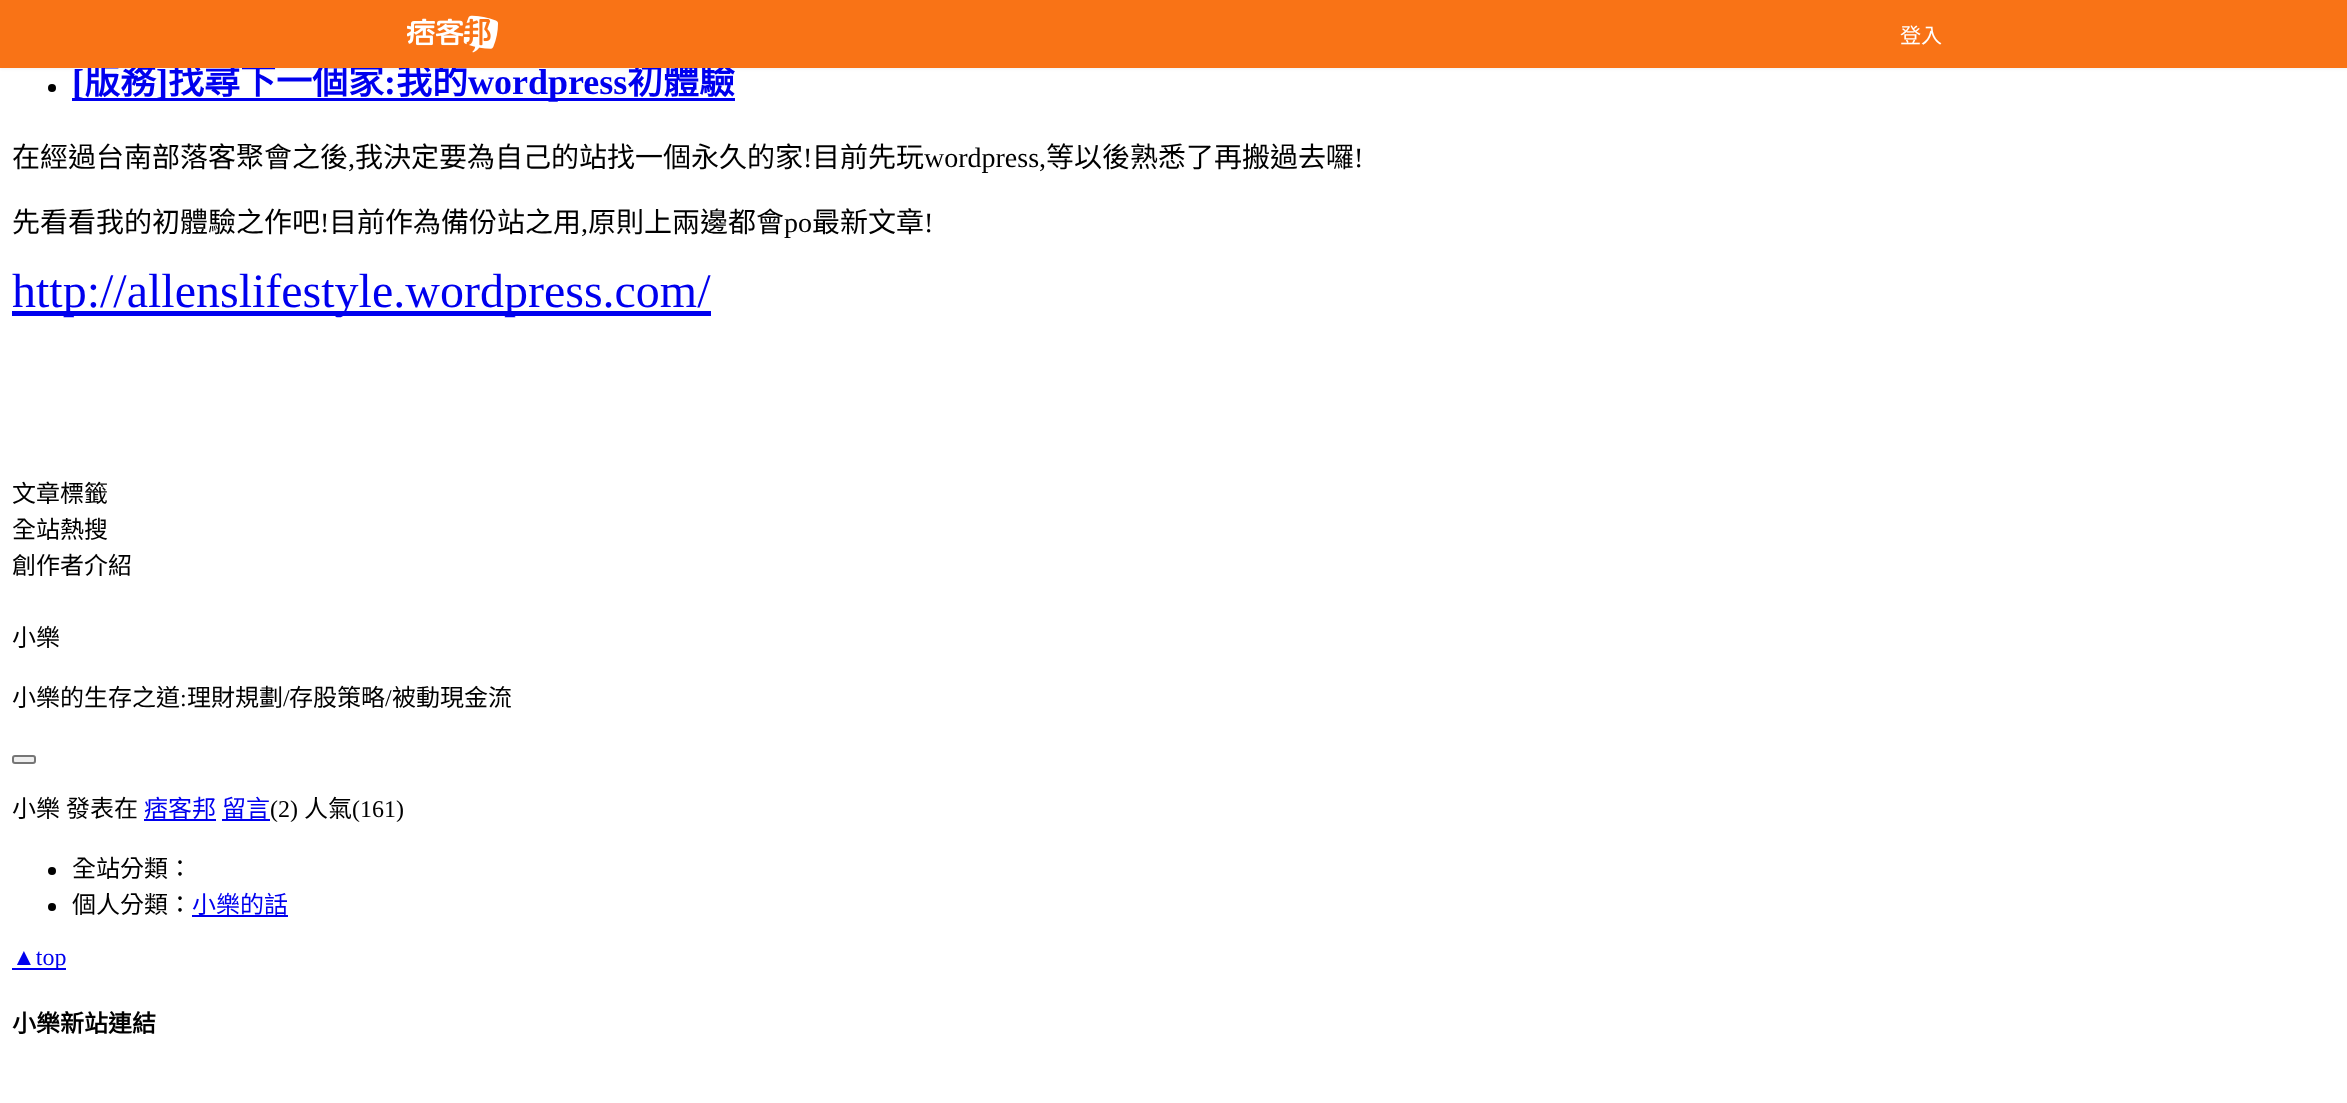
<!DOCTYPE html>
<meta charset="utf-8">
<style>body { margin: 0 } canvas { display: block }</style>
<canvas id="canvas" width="2347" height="1103"></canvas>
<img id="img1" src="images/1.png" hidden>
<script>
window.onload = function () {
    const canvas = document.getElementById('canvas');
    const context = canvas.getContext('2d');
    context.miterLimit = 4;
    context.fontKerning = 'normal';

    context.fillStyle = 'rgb(255, 255, 255)';
    context.fillRect(0, 0, 2347, 1103);
    context.fillStyle = 'rgba(0, 0, 0, 0.05)';
    context.filter = 'blur(1.5px)';
    context.beginPath();
    context.rect(0, 2, 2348, 67);
    context.fill();
    context.filter = 'none';
    context.fillStyle = 'rgb(0, 0, 0)';
    context.beginPath();
    context.arc(52, 88, 4, 0, 2 * Math.PI);
    context.fill();
    context.fillStyle = 'rgb(0, 0, 238)';
    context.fillRect(72, 98, 663, 3);
    context.fillRect(12, 311, 699, 5);
    context.fillStyle = 'rgb(239, 239, 239)';
    context.beginPath();
    context.roundRect(13, 756, 22, 7, 2);
    context.fill();
    context.strokeStyle = 'rgb(118, 118, 118)';
    context.lineWidth = 2;
    context.stroke();
    context.fillStyle = 'rgb(0, 0, 238)';
    context.fillRect(144, 819, 72, 2);
    context.fillRect(222, 819, 48, 2);
    context.fillStyle = 'rgb(0, 0, 0)';
    context.beginPath();
    context.arc(52, 871, 4, 0, 2 * Math.PI);
    context.fill();
    context.beginPath();
    context.arc(52, 907, 4, 0, 2 * Math.PI);
    context.fill();
    context.fillStyle = 'rgb(0, 0, 238)';
    context.fillRect(192, 915, 96, 2);
    context.fillRect(12, 968, 54, 2);
    context.font = 'bold 36px Liberation Serif';
    context.fillText('[', 72, 94);
    context.font = 'bold 36px Noto Sans CJK TC';
    context.fillText('版務', 84, 94);
    context.font = 'bold 36px Liberation Serif';
    context.fillText(']', 156, 94);
    context.font = 'bold 36px Noto Sans CJK TC';
    context.fillText('找尋下一個家', 168, 94);
    context.font = 'bold 36px Liberation Serif';
    context.fillText(':', 384, 94);
    context.font = 'bold 36px Noto Sans CJK TC';
    context.fillText('我的', 396, 94);
    context.font = 'bold 36px Liberation Serif';
    context.fillText('wordpress', 468, 94);
    context.font = 'bold 36px Noto Sans CJK TC';
    context.fillText('初體驗', 627, 94);
    context.fillStyle = 'rgb(249, 115, 22)';
    context.fillRect(0, 0, 2347, 68);
    context.font = '21px Noto Sans CJK TC';
    context.fillStyle = 'rgb(255, 255, 255)';
    context.fillText('登入', 1900, 43);
    context.drawImage(document.getElementById('img1'), 407, 15, 91, 38);
    context.font = '28px Noto Sans CJK TC';
    context.fillStyle = 'rgb(0, 0, 0)';
    context.fillText('在經過台南部落客聚會之後', 12, 167);
    context.font = '28px Liberation Serif';
    context.fillText(',', 348, 167);
    context.font = '28px Noto Sans CJK TC';
    context.fillText('我決定要為自己的站找一個永久的家', 355, 167);
    context.font = '28px Liberation Serif';
    context.fillText('!', 803, 167);
    context.font = '28px Noto Sans CJK TC';
    context.fillText('目前先玩', 812, 167);
    context.font = '28px Liberation Serif';
    context.fillText('wordpress,', 924, 167);
    context.font = '28px Noto Sans CJK TC';
    context.fillText('等以後熟悉了再搬過去囉', 1046, 167);
    context.font = '28px Liberation Serif';
    context.fillText('!', 1354, 167);
    context.font = '28px Noto Sans CJK TC';
    context.fillText('先看看我的初體驗之作吧', 12, 232);
    context.font = '28px Liberation Serif';
    context.fillText('!', 320, 232);
    context.font = '28px Noto Sans CJK TC';
    context.fillText('目前作為備份站之用', 329, 232);
    context.font = '28px Liberation Serif';
    context.fillText(',', 581, 232);
    context.font = '28px Noto Sans CJK TC';
    context.fillText('原則上兩邊都會', 588, 232);
    context.font = '28px Liberation Serif';
    context.fillText('po', 784, 232);
    context.font = '28px Noto Sans CJK TC';
    context.fillText('最新文章', 812, 232);
    context.font = '28px Liberation Serif';
    context.fillText('!', 924, 232);
    context.font = '48px Liberation Serif';
    context.fillStyle = 'rgb(0, 0, 238)';
    context.fillText('http://allenslifestyle.wordpress.com/', 12, 307);
    context.font = '24px Noto Sans CJK TC';
    context.fillStyle = 'rgb(0, 0, 0)';
    context.fillText('文章標籤', 12, 502);
    context.fillText('全站熱搜', 12, 538);
    context.fillText('創作者介紹', 12, 574);
    context.fillText('小樂', 12, 646);
    context.fillText('小樂的生存之道', 12, 706);
    context.font = '24px Liberation Serif';
    context.fillText(':', 180, 706);
    context.font = '24px Noto Sans CJK TC';
    context.fillText('理財規劃', 187, 706);
    context.font = '24px Liberation Serif';
    context.fillText('/', 283, 706);
    context.font = '24px Noto Sans CJK TC';
    context.fillText('存股策略', 289, 706);
    context.font = '24px Liberation Serif';
    context.fillText('/', 385, 706);
    context.font = '24px Noto Sans CJK TC';
    context.fillText('被動現金流', 392, 706);
    context.fillText('小樂', 12, 817);
    context.fillText('發表在', 66, 817);
    context.fillStyle = 'rgb(0, 0, 238)';
    context.fillText('痞客邦', 144, 817);
    context.fillText('留言', 222, 817);
    context.font = '24px Liberation Serif';
    context.fillStyle = 'rgb(0, 0, 0)';
    context.fillText('(2)', 270, 817);
    context.font = '24px Noto Sans CJK TC';
    context.fillText('人氣', 304, 817);
    context.font = '24px Liberation Serif';
    context.fillText('(161)', 352, 817);
    context.font = '24px Noto Sans CJK TC';
    context.fillText('全站分類：', 72, 877);
    context.fillText('個人分類：', 72, 913);
    context.fillStyle = 'rgb(0, 0, 238)';
    context.fillText('小樂的話', 192, 913);
    context.font = '24px Liberation Serif';
    context.fillText('▲top', 12, 965);
    context.font = 'bold 24px Noto Sans CJK TC';
    context.fillStyle = 'rgb(0, 0, 0)';
    context.fillText('小樂新站連結', 12, 1032);
};
</script>
